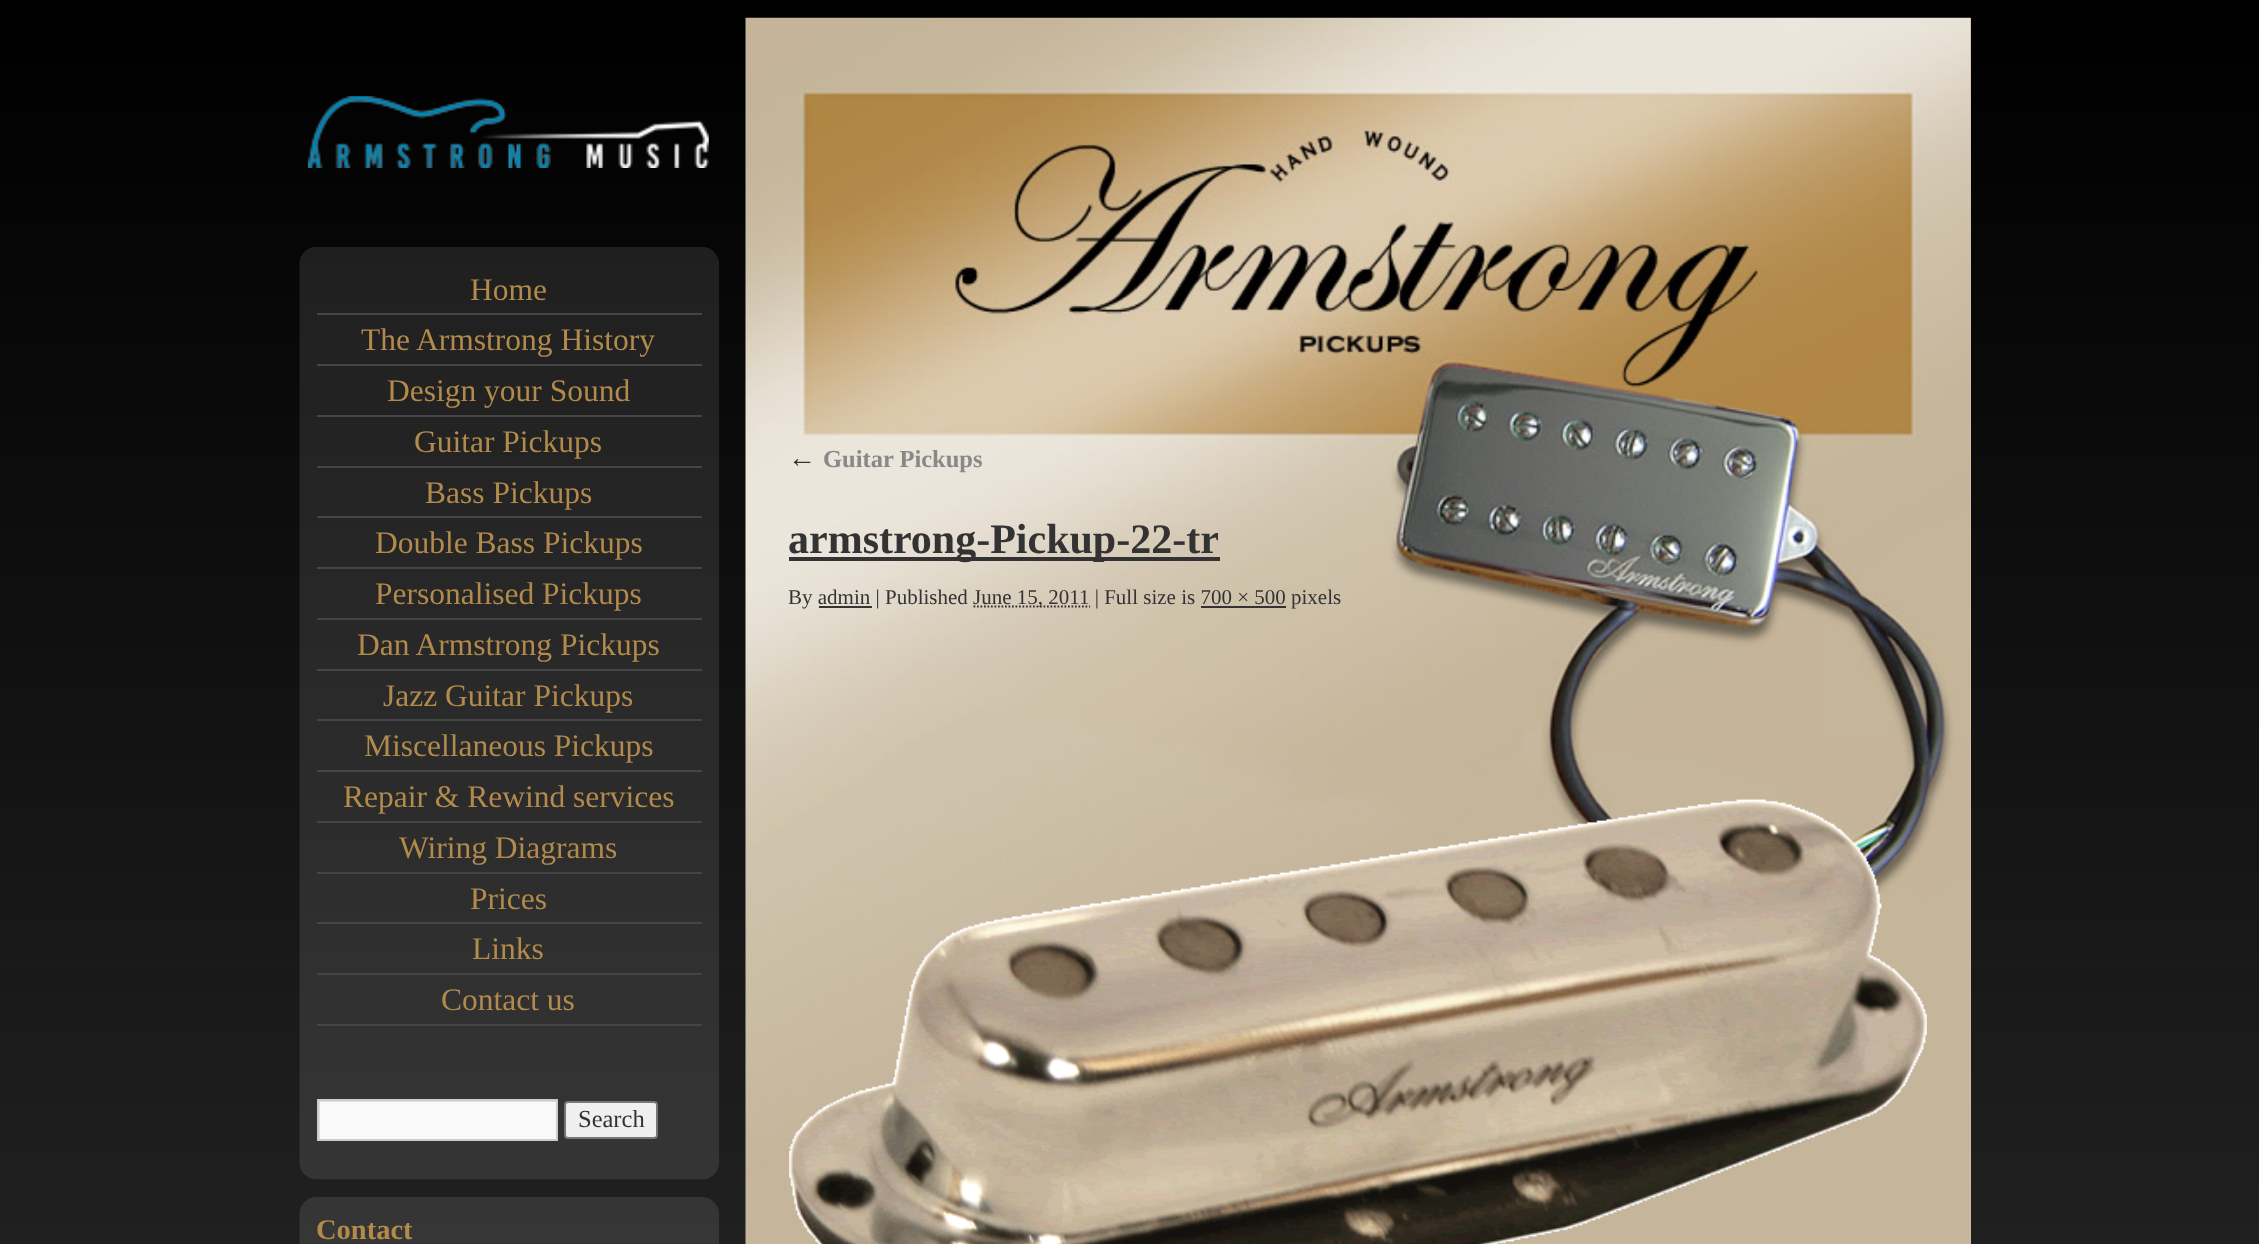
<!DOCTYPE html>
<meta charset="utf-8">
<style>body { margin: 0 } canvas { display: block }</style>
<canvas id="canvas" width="2259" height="1244"></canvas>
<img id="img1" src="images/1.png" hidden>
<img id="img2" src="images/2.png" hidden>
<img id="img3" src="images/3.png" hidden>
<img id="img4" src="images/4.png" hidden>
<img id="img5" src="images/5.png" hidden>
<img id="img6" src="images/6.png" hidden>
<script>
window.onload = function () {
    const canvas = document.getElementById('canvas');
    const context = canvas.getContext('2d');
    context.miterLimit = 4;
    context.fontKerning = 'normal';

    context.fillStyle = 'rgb(255, 255, 255)';
    context.fillRect(0, 0, 2259, 1244);
    context.drawImage(document.getElementById('img1'), 0, 0, 2259, 1244);
    context.drawImage(document.getElementById('img2'), 308, 96, 401, 72);
    context.drawImage(document.getElementById('img3'), 299, 247, 420, 933);
    context.fillStyle = 'rgb(69, 69, 69)';
    context.fillRect(317, 313, 385, 2);
    context.fillRect(317, 364, 385, 2);
    context.fillRect(317, 415, 385, 2);
    context.fillRect(317, 466, 385, 2);
    context.fillRect(317, 516, 385, 2);
    context.fillRect(317, 567, 385, 2);
    context.fillRect(317, 618, 385, 2);
    context.fillRect(317, 669, 385, 2);
    context.fillRect(317, 719, 385, 2);
    context.fillRect(317, 770, 385, 2);
    context.fillRect(317, 821, 385, 2);
    context.fillRect(317, 872, 385, 2);
    context.fillRect(317, 922, 385, 2);
    context.fillRect(317, 973, 385, 2);
    context.fillRect(317, 1024, 385, 2);
    context.fillStyle = 'rgb(249, 249, 249)';
    context.fillRect(320, 1102, 236, 37);
    context.save();
    context.beginPath();
    context.rect(319, 1101, 238, 38);
    context.clip();
    context.fillStyle = 'rgb(224, 224, 224)';
    context.beginPath();
    context.moveTo(145, 928);
    context.lineTo(730, 928);
    context.lineTo(730, 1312);
    context.lineTo(145, 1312);
    context.closePath();
    context.moveTo(320, 1102);
    context.lineTo(558, 1102);
    context.lineTo(558, 1141);
    context.lineTo(320, 1141);
    context.closePath();
    context.fill('evenodd');
    context.restore();
    context.strokeStyle = 'rgb(204, 204, 204)';
    context.lineWidth = 2;
    context.strokeRect(318, 1100, 239, 40);
    context.fillStyle = 'rgb(239, 239, 239)';
    context.beginPath();
    context.roundRect(565, 1102, 92, 36, 3);
    context.fill();
    context.strokeStyle = 'rgb(118, 118, 118)';
    context.stroke();
    context.drawImage(document.getElementById('img4'), 299, 1197, 420, 47);
    context.fillStyle = 'rgb(205, 191, 165)';
    context.fillRect(1970, 18, 1, 1226);
    context.drawImage(document.getElementById('img5'), 745, 17, 1226, 1227);
    context.fillStyle = 'rgb(51, 51, 51)';
    context.fillRect(789, 557, 431, 4);
    context.beginPath();
    context.moveTo(973.5, 606.5);
    context.lineTo(1090, 606.5);
    context.strokeStyle = 'rgb(51, 51, 51)';
    context.lineWidth = 1.8;
    context.setLineDash([1.75, 1.75]);
    context.stroke();
    context.fillRect(819, 606, 53, 2);
    context.fillRect(1201, 606, 85, 2);
    context.drawImage(document.getElementById('img6'), 789, 799, 1138, 445);
    context.font = '31.5px Liberation Serif';
    context.fillStyle = 'rgb(178, 138, 76)';
    context.fillText('Home', 470, 300);
    context.fillText('The Armstrong History', 361, 350);
    context.fillText('Design your Sound', 387, 401);
    context.fillText('Guitar Pickups', 414, 452);
    context.fillText('Bass Pickups', 425, 503);
    context.fillText('Double Bass Pickups', 375, 553);
    context.fillText('Personalised Pickups', 375, 604);
    context.fillText('Dan Armstrong Pickups', 357, 655);
    context.fillText('Jazz Guitar Pickups', 383, 706);
    context.fillText('Miscellaneous Pickups', 364, 756);
    context.fillText('Repair & Rewind services', 343, 807);
    context.fillText('Wiring Diagrams', 399, 858);
    context.fillText('Prices', 470, 909);
    context.fillText('Links', 472, 959);
    context.fillText('Contact us', 441, 1010);
    context.font = '24.5px Liberation Serif';
    context.fillStyle = 'rgb(51, 51, 51)';
    context.fillText('Search', 578, 1127);
    context.font = 'bold 28.5px Liberation Serif';
    context.fillStyle = 'rgb(178, 138, 76)';
    context.fillText('Contact', 316, 1239);
    context.font = 'italic 28px Liberation Serif';
    context.fillStyle = 'rgb(51, 51, 51)';
    context.fillText('←', 788, 467);
    context.font = 'bold 24.5px Liberation Serif';
    context.fillStyle = 'rgb(136, 136, 136)';
    context.fillText('Guitar Pickups', 823, 467);
    context.font = 'bold 42px Liberation Serif';
    context.fillStyle = 'rgb(51, 51, 51)';
    context.fillText('armstrong-Pickup-22-tr', 788, 553);
    context.font = '21px Liberation Serif';
    context.fillText('By admin | Published', 788, 604);
    context.fillText('June 15, 2011 | Full size is 700 × 500 pixels', 973, 604);
};
</script>
